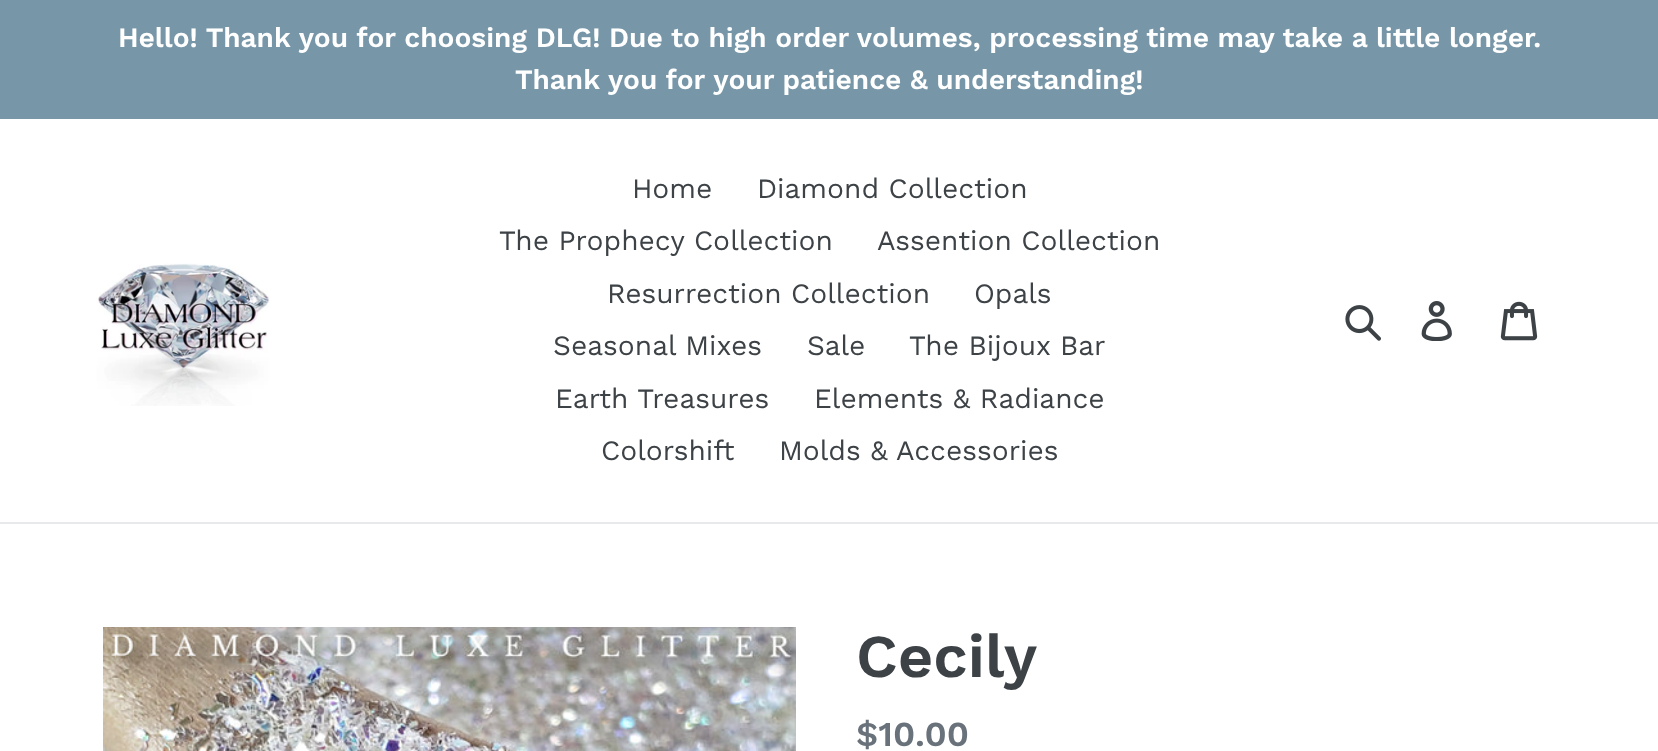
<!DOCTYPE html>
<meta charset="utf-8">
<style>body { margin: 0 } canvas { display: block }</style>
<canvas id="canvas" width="1658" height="751"></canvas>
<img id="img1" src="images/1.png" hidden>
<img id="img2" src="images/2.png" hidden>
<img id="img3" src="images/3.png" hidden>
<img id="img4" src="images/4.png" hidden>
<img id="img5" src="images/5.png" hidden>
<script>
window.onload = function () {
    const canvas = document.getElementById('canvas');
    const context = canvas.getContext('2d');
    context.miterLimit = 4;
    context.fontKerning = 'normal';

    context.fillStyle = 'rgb(255, 255, 255)';
    context.fillRect(0, 0, 1658, 751);
    context.fillStyle = 'rgb(119, 150, 168)';
    context.fillRect(0, 0, 1658, 119);
    context.fillStyle = 'rgb(232, 233, 235)';
    context.fillRect(0, 522, 1658, 2);
    context.drawImage(document.getElementById('img1'), 96, 263, 174, 143);
    context.drawImage(document.getElementById('img2'), 1345, 305, 36, 36);
    context.drawImage(document.getElementById('img3'), 1421, 301, 31, 40);
    context.drawImage(document.getElementById('img4'), 1500, 301, 38, 40);
    context.drawImage(document.getElementById('img5'), 103, 627, 693, 124);
    context.font = '600 28px Work Sans';
    context.fillStyle = 'rgb(255, 255, 255)';
    context.fillText('Hello! Thank you for choosing DLG! Due to high order volumes, processing time may take a little longer.', 118, 47);
    context.fillText('Thank you for your patience & understanding!', 515, 89);
    context.font = '28px Work Sans';
    context.fillStyle = 'rgb(61, 66, 70)';
    context.fillText('Home', 632, 198);
    context.fillText('Diamond Collection', 757, 198);
    context.fillText('The Prophecy Collection', 499, 250);
    context.fillText('Assention Collection', 877, 250);
    context.fillText('Resurrection Collection', 607, 303);
    context.fillText('Opals', 974, 303);
    context.fillText('Seasonal Mixes', 553, 355);
    context.fillText('Sale', 807, 355);
    context.fillText('The Bijoux Bar', 909, 355);
    context.fillText('Earth Treasures', 555, 408);
    context.fillText('Elements & Radiance', 814, 408);
    context.fillText('Colorshift', 601, 460);
    context.fillText('Molds & Accessories', 779, 460);
    context.font = '600 61px Work Sans';
    context.fillText('Cecily', 856, 677);
    context.font = '600 35px Work Sans';
    context.fillStyle = 'rgb(105, 114, 123)';
    context.fillText('$10.00', 856, 746);
};
</script>
